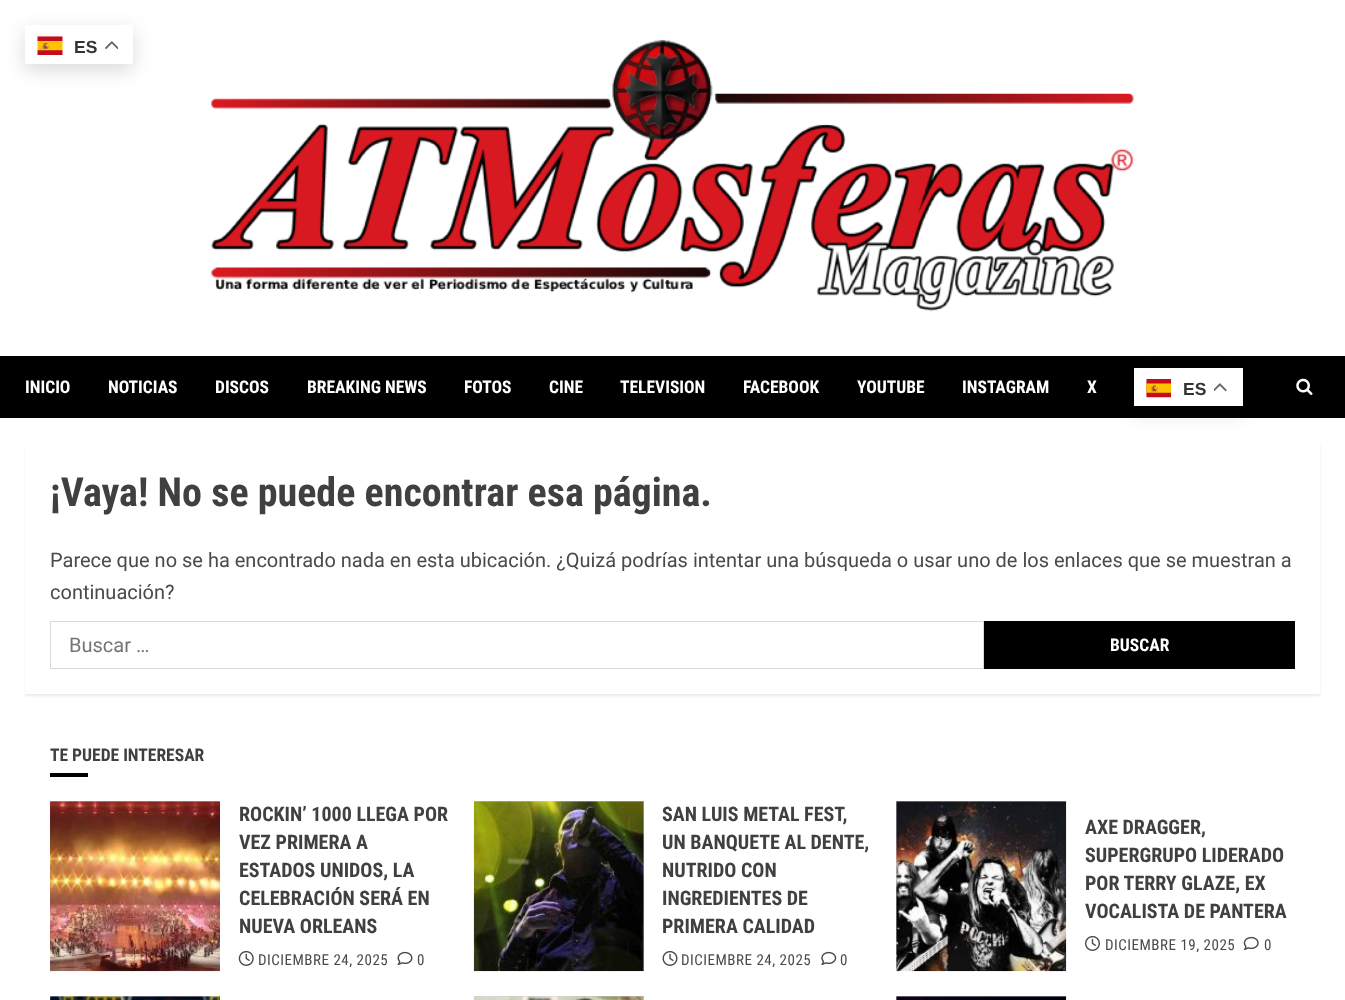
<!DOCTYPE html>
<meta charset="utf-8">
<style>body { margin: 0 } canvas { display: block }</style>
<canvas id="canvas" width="1345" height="1000"></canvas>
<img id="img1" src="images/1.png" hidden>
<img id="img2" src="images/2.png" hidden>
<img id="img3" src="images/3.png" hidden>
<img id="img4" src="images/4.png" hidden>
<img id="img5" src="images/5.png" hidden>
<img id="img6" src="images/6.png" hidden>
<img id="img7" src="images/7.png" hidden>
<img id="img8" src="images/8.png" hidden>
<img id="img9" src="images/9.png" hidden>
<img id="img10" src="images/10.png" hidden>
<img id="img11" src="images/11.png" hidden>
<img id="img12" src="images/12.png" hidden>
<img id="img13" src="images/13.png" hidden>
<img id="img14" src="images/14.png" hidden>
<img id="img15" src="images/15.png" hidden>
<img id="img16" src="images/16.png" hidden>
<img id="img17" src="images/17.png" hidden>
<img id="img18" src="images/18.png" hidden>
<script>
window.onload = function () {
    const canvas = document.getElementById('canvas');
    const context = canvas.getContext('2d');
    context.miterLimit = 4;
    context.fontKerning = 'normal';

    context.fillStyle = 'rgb(255, 255, 255)';
    context.fillRect(0, 0, 1345, 1000);
    context.fillStyle = 'rgba(0, 0, 0, 0.15)';
    context.filter = 'blur(9.5px)';
    context.beginPath();
    context.roundRect(25, 31, 108, 39, 2.5);
    context.fill();
    context.filter = 'none';
    context.fillStyle = 'rgb(255, 255, 255)';
    context.fillRect(25, 25, 108, 39);
    context.drawImage(document.getElementById('img1'), 37, 36, 26, 19);
    context.drawImage(document.getElementById('img2'), 105, 41, 13, 9);
    context.drawImage(document.getElementById('img3'), 210, 39, 924, 273);
    context.fillStyle = 'rgb(0, 0, 0)';
    context.fillRect(0, 356, 1345, 62);
    context.fillStyle = 'rgba(0, 0, 0, 0.15)';
    context.filter = 'blur(9.5px)';
    context.beginPath();
    context.roundRect(1134, 374, 109, 39, 2.5);
    context.fill();
    context.filter = 'none';
    context.fillStyle = 'rgb(255, 255, 255)';
    context.fillRect(1134, 368, 109, 38);
    context.drawImage(document.getElementById('img4'), 1146, 379, 25, 19);
    context.drawImage(document.getElementById('img5'), 1214, 383, 13, 9);
    context.drawImage(document.getElementById('img6'), 1296, 378, 17, 17);
    context.fillStyle = 'rgba(0, 0, 0, 0.08)';
    context.filter = 'blur(1px)';
    context.beginPath();
    context.rect(25, 445, 1295, 251);
    context.fill();
    context.filter = 'none';
    context.fillStyle = 'rgb(255, 255, 255)';
    context.fillRect(25, 444, 1295, 250);
    context.strokeStyle = 'rgb(217, 217, 217)';
    context.strokeRect(50.5, 621.5, 933, 47);
    context.fillStyle = 'rgb(0, 0, 0)';
    context.fillRect(984, 621, 311, 48);
    context.fillRect(50, 773, 38, 4);
    context.fillStyle = 'rgb(204, 204, 204)';
    context.fillRect(50, 801, 170, 1);
    context.drawImage(document.getElementById('img7'), 50, 801, 170, 171);
    context.drawImage(document.getElementById('img8'), 238, 950, 16, 16);
    context.drawImage(document.getElementById('img9'), 397, 951, 16, 14);
    context.fillRect(474, 801, 170, 170);
    context.drawImage(document.getElementById('img10'), 473, 801, 171, 171);
    context.drawImage(document.getElementById('img11'), 662, 951, 16, 15);
    context.drawImage(document.getElementById('img12'), 821, 951, 16, 14);
    context.fillRect(896, 801, 170, 170);
    context.drawImage(document.getElementById('img13'), 896, 801, 171, 171);
    context.drawImage(document.getElementById('img14'), 1085, 935, 15, 16);
    context.drawImage(document.getElementById('img15'), 1243, 936, 16, 14);
    context.fillRect(50, 996, 170, 1);
    context.drawImage(document.getElementById('img16'), 50, 996, 170, 4);
    context.fillRect(474, 996, 170, 4);
    context.drawImage(document.getElementById('img17'), 473, 996, 171, 4);
    context.fillRect(896, 996, 170, 4);
    context.drawImage(document.getElementById('img18'), 896, 996, 171, 4);
    context.font = 'bold 17.5px Liberation Sans';
    context.fillStyle = 'rgb(51, 51, 51)';
    context.fillText('ES', 74, 53);
    context.font = 'bold 17.5px Roboto Condensed';
    context.fillStyle = 'rgb(255, 255, 255)';
    context.fillText('INICIO', 25, 393);
    context.fillText('NOTICIAS', 108, 393);
    context.fillText('DISCOS', 215, 393);
    context.fillText('BREAKING NEWS', 307, 393);
    context.fillText('FOTOS', 464, 393);
    context.fillText('CINE', 549, 393);
    context.fillText('TELEVISION', 620, 393);
    context.fillText('FACEBOOK', 743, 393);
    context.fillText('YOUTUBE', 857, 393);
    context.fillText('INSTAGRAM', 962, 393);
    context.fillText('X', 1087, 393);
    context.font = 'bold 17.5px Liberation Sans';
    context.fillStyle = 'rgb(51, 51, 51)';
    context.fillText('ES', 1183, 395);
    context.font = 'bold 40px Roboto Condensed';
    context.fillStyle = 'rgb(64, 64, 64)';
    context.fillText('¡Vaya! No se puede encontrar esa página.', 50, 506);
    context.font = '20px Roboto';
    context.fillStyle = 'rgb(74, 74, 74)';
    context.fillText('Parece que no se ha encontrado nada en esta ubicación. ¿Quizá podrías intentar una búsqueda o usar uno de los enlaces que se muestran a', 50, 567);
    context.fillText('continuación?', 50, 599);
    context.fillStyle = 'rgb(117, 117, 117)';
    context.fillText('Buscar …', 69, 652);
    context.font = 'bold 17.5px Roboto Condensed';
    context.fillStyle = 'rgb(255, 255, 255)';
    context.fillText('BUSCAR', 1110, 651);
    context.fillStyle = 'rgb(64, 64, 64)';
    context.fillText('TE PUEDE INTERESAR', 50, 761);
    context.font = 'bold 20px Roboto Condensed';
    context.fillText('ROCKIN’ 1000 LLEGA POR', 239, 821);
    context.fillText('VEZ PRIMERA A', 239, 849);
    context.fillText('ESTADOS UNIDOS, LA', 239, 877);
    context.fillText('CELEBRACIÓN SERÁ EN', 239, 905);
    context.fillText('NUEVA ORLEANS', 239, 933);
    context.letterSpacing = '0.5px';
    context.font = '15px Roboto Condensed';
    context.fillStyle = 'rgb(74, 74, 74)';
    context.fillText('DICIEMBRE 24, 2025', 258, 965);
    context.fillText('0', 417, 965);
    context.letterSpacing = '0px';
    context.font = 'bold 20px Roboto Condensed';
    context.fillStyle = 'rgb(64, 64, 64)';
    context.fillText('SAN LUIS METAL FEST,', 662, 821);
    context.fillText('UN BANQUETE AL DENTE,', 662, 849);
    context.fillText('NUTRIDO CON', 662, 877);
    context.fillText('INGREDIENTES DE', 662, 905);
    context.fillText('PRIMERA CALIDAD', 662, 933);
    context.letterSpacing = '0.5px';
    context.font = '15px Roboto Condensed';
    context.fillStyle = 'rgb(74, 74, 74)';
    context.fillText('DICIEMBRE 24, 2025', 681, 965);
    context.fillText('0', 840, 965);
    context.letterSpacing = '0px';
    context.font = 'bold 20px Roboto Condensed';
    context.fillStyle = 'rgb(64, 64, 64)';
    context.fillText('AXE DRAGGER,', 1085, 834);
    context.fillText('SUPERGRUPO LIDERADO', 1085, 862);
    context.fillText('POR TERRY GLAZE, EX', 1085, 890);
    context.fillText('VOCALISTA DE PANTERA', 1085, 918);
    context.letterSpacing = '0.5px';
    context.font = '15px Roboto Condensed';
    context.fillStyle = 'rgb(74, 74, 74)';
    context.fillText('DICIEMBRE 19, 2025', 1105, 950);
    context.fillText('0', 1264, 950);
};
</script>
